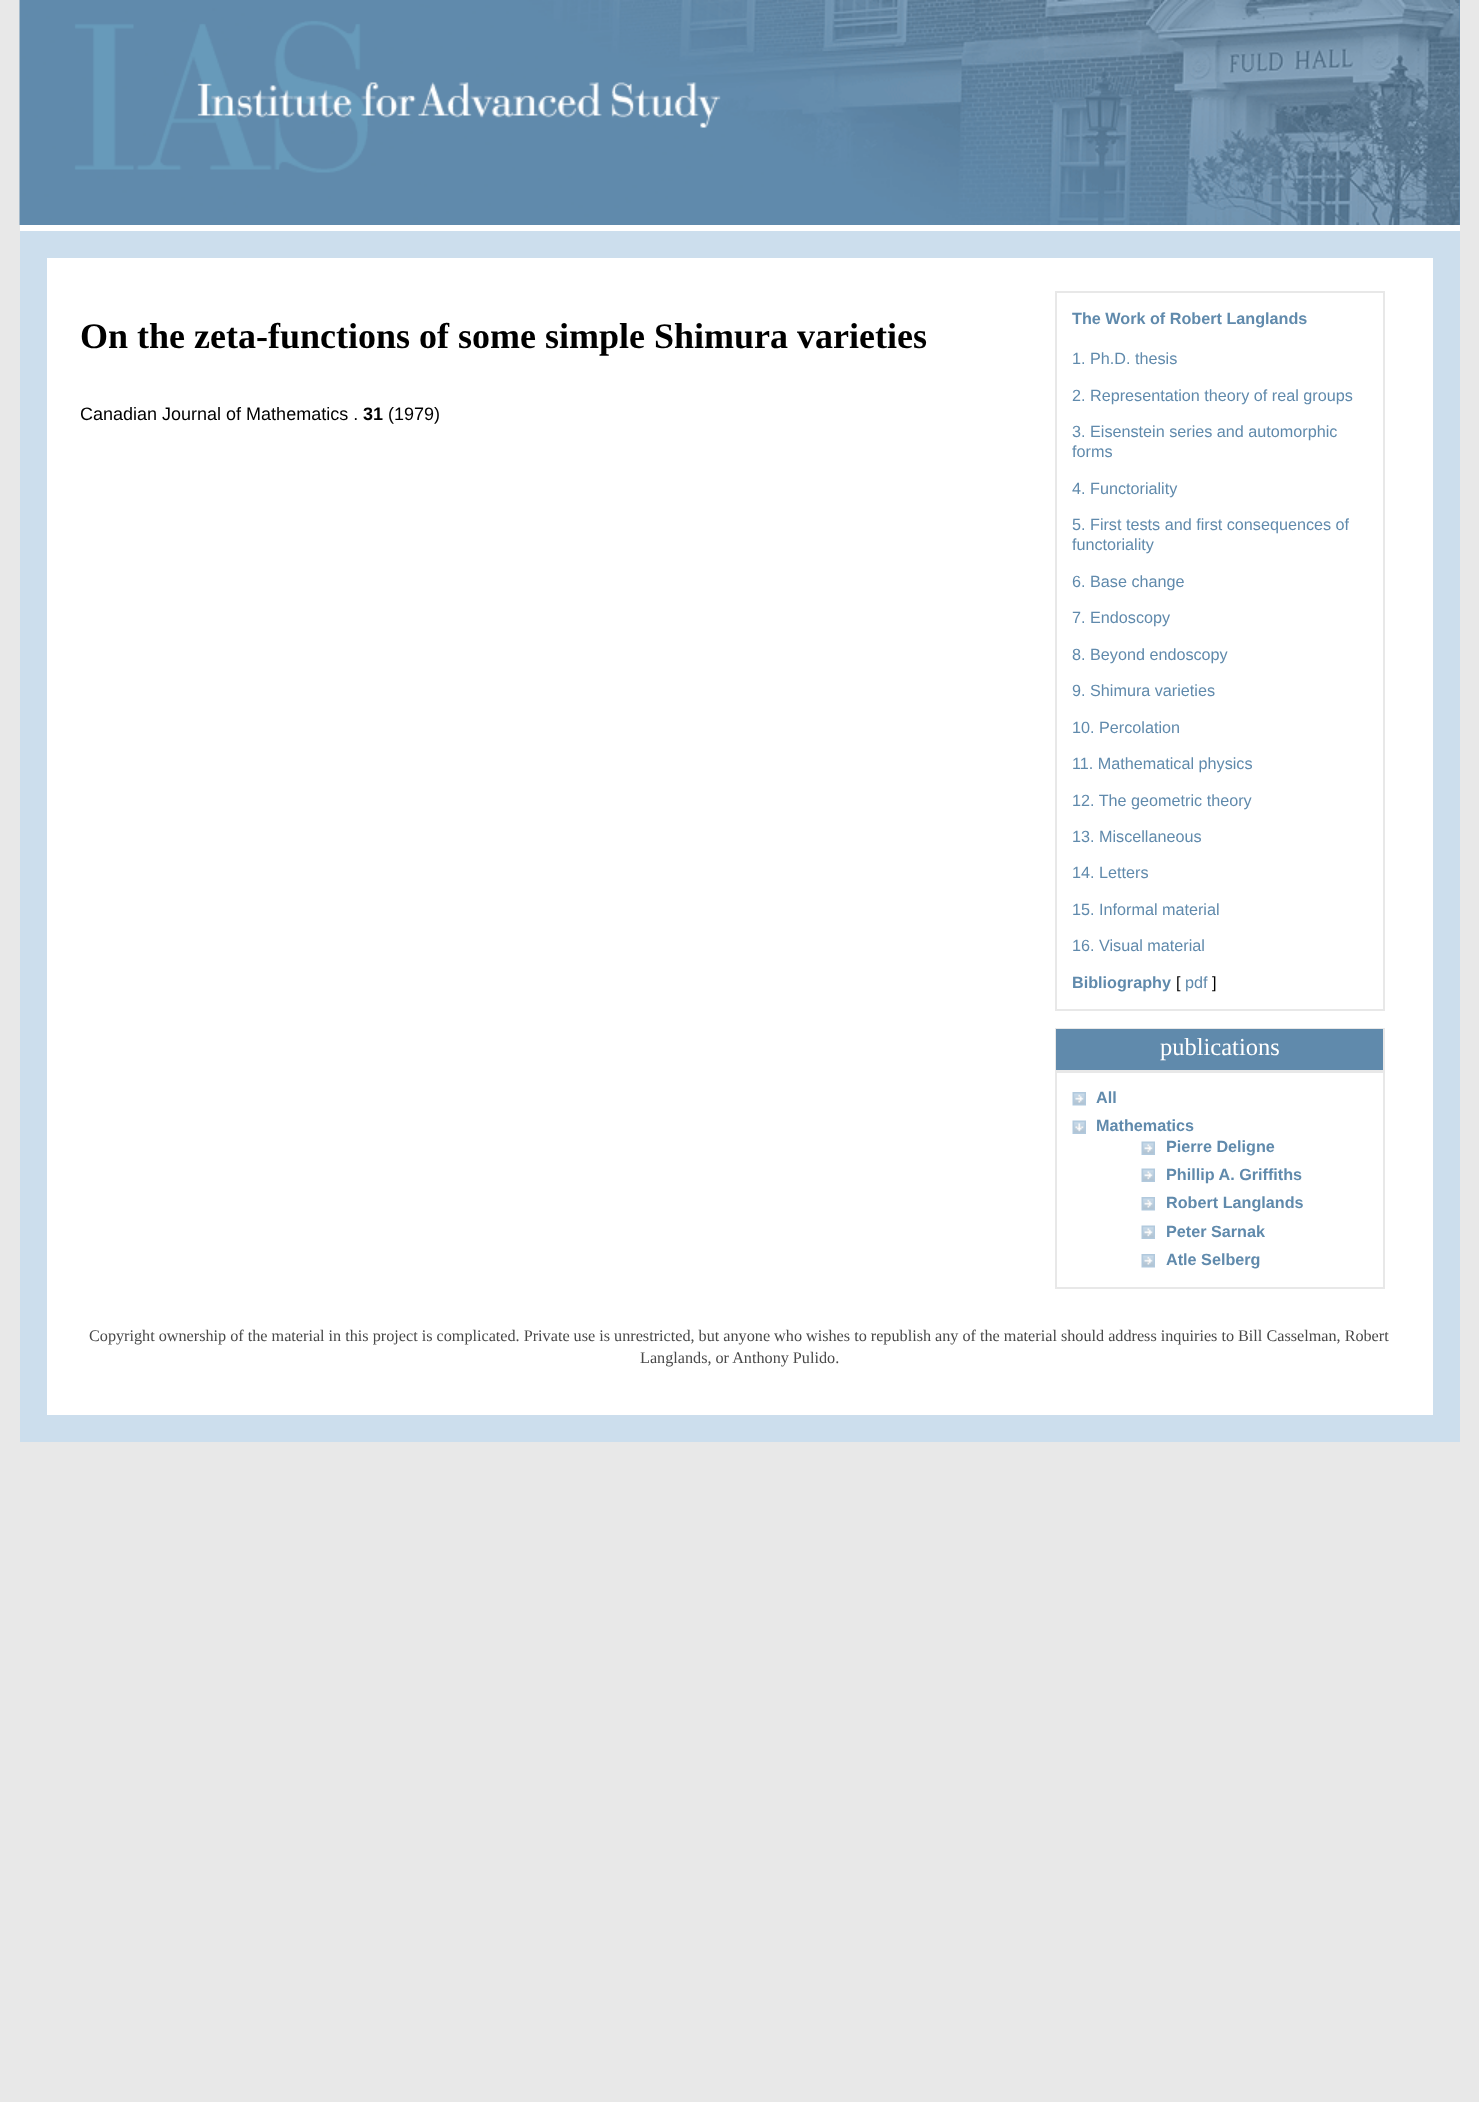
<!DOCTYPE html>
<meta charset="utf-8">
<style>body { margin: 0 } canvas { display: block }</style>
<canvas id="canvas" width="1479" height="2102"></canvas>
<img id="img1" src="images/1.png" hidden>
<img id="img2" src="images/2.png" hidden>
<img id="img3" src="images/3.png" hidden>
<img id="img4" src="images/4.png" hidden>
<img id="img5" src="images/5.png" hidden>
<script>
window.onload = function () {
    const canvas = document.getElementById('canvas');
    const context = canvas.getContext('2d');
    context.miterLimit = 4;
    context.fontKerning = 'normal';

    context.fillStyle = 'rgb(232, 232, 232)';
    context.fillRect(0, 0, 1479, 2102);
    context.fillStyle = 'rgb(96, 138, 172)';
    context.fillRect(1459, 0, 1, 225);
    context.drawImage(document.getElementById('img1'), 19, 0, 1441, 225);
    context.fillStyle = 'rgb(255, 255, 255)';
    context.fillRect(20, 225, 1440, 6);
    context.beginPath();
    context.rect(33.5, 244.5, 1413, 1184);
    context.fill();
    context.strokeStyle = 'rgb(204, 222, 237)';
    context.lineWidth = 27;
    context.stroke();
    context.strokeStyle = 'rgb(232, 232, 232)';
    context.lineWidth = 2;
    context.strokeRect(1056, 292, 328, 718);
    context.strokeRect(1056, 1029, 328, 259);
    context.fillStyle = 'rgb(96, 138, 172)';
    context.fillRect(1056, 1029, 327, 41);
    context.fillStyle = 'rgb(232, 232, 232)';
    context.fillRect(1056, 1070, 327, 3);
    context.drawImage(document.getElementById('img2'), 1072, 1092, 14, 14);
    context.drawImage(document.getElementById('img3'), 1072, 1120, 14, 14);
    context.drawImage(document.getElementById('img4'), 1141, 1141, 14, 14);
    context.drawImage(document.getElementById('img4'), 1141, 1168, 14, 14);
    context.drawImage(document.getElementById('img5'), 1141, 1197, 14, 14);
    context.drawImage(document.getElementById('img4'), 1141, 1225, 14, 14);
    context.drawImage(document.getElementById('img5'), 1141, 1254, 14, 14);
    context.font = 'bold 36px Liberation Serif';
    context.fillStyle = 'rgb(0, 0, 0)';
    context.fillText('On the zeta-functions of some simple Shimura varieties', 80, 348);
    context.font = '18px Liberation Sans';
    context.fillText('Canadian Journal of Mathematics .', 80, 420);
    context.font = 'bold 18px Liberation Sans';
    context.fillText('31', 363, 420);
    context.font = '18px Liberation Sans';
    context.fillText('(1979)', 388, 420);
    context.font = 'bold 16.2px Liberation Sans';
    context.fillStyle = 'rgb(96, 138, 172)';
    context.fillText('The Work of Robert Langlands', 1072, 324);
    context.font = '16.2px Liberation Sans';
    context.fillText('1. Ph.D. thesis', 1072, 364);
    context.fillText('2. Representation theory of real groups', 1072, 401);
    context.fillText('3. Eisenstein series and automorphic', 1072, 437);
    context.fillText('forms', 1072, 457);
    context.fillText('4. Functoriality', 1072, 494);
    context.fillText('5. First tests and first consequences of', 1072, 530);
    context.fillText('functoriality', 1072, 550);
    context.fillText('6. Base change', 1072, 587);
    context.fillText('7. Endoscopy', 1072, 623);
    context.fillText('8. Beyond endoscopy', 1072, 660);
    context.fillText('9. Shimura varieties', 1072, 696);
    context.fillText('10. Percolation', 1072, 733);
    context.fillText('11. Mathematical physics', 1072, 769);
    context.fillText('12. The geometric theory', 1072, 806);
    context.fillText('13. Miscellaneous', 1072, 842);
    context.fillText('14. Letters', 1072, 878);
    context.fillText('15. Informal material', 1072, 915);
    context.fillText('16. Visual material', 1072, 951);
    context.font = 'bold 16.2px Liberation Sans';
    context.fillText('Bibliography', 1072, 988);
    context.font = '16.2px Liberation Sans';
    context.fillStyle = 'rgb(0, 0, 0)';
    context.fillText('[', 1176, 988);
    context.fillStyle = 'rgb(96, 138, 172)';
    context.fillText('pdf', 1185, 988);
    context.fillStyle = 'rgb(0, 0, 0)';
    context.fillText(']', 1212, 988);
    context.font = '24.5px Liberation Serif';
    context.fillStyle = 'rgb(255, 255, 255)';
    context.fillText('publications', 1160, 1055);
    context.font = 'bold 16.2px Liberation Sans';
    context.fillStyle = 'rgb(96, 138, 172)';
    context.fillText('All', 1096, 1103);
    context.fillText('Mathematics', 1096, 1131);
    context.fillText('Pierre Deligne', 1166, 1152);
    context.fillText('Phillip A. Griffiths', 1166, 1180);
    context.fillText('Robert Langlands', 1166, 1208);
    context.fillText('Peter Sarnak', 1166, 1237);
    context.fillText('Atle Selberg', 1166, 1265);
    context.font = '16.2px Liberation Serif';
    context.fillStyle = 'rgb(73, 73, 73)';
    context.fillText('Copyright ownership of the material in this project is complicated. Private use is unrestricted, but anyone who wishes to republish any of the material should address inquiries to Bill Casselman, Robert', 89, 1341);
    context.fillText('Langlands, or Anthony Pulido.', 640, 1363);
};
</script>
